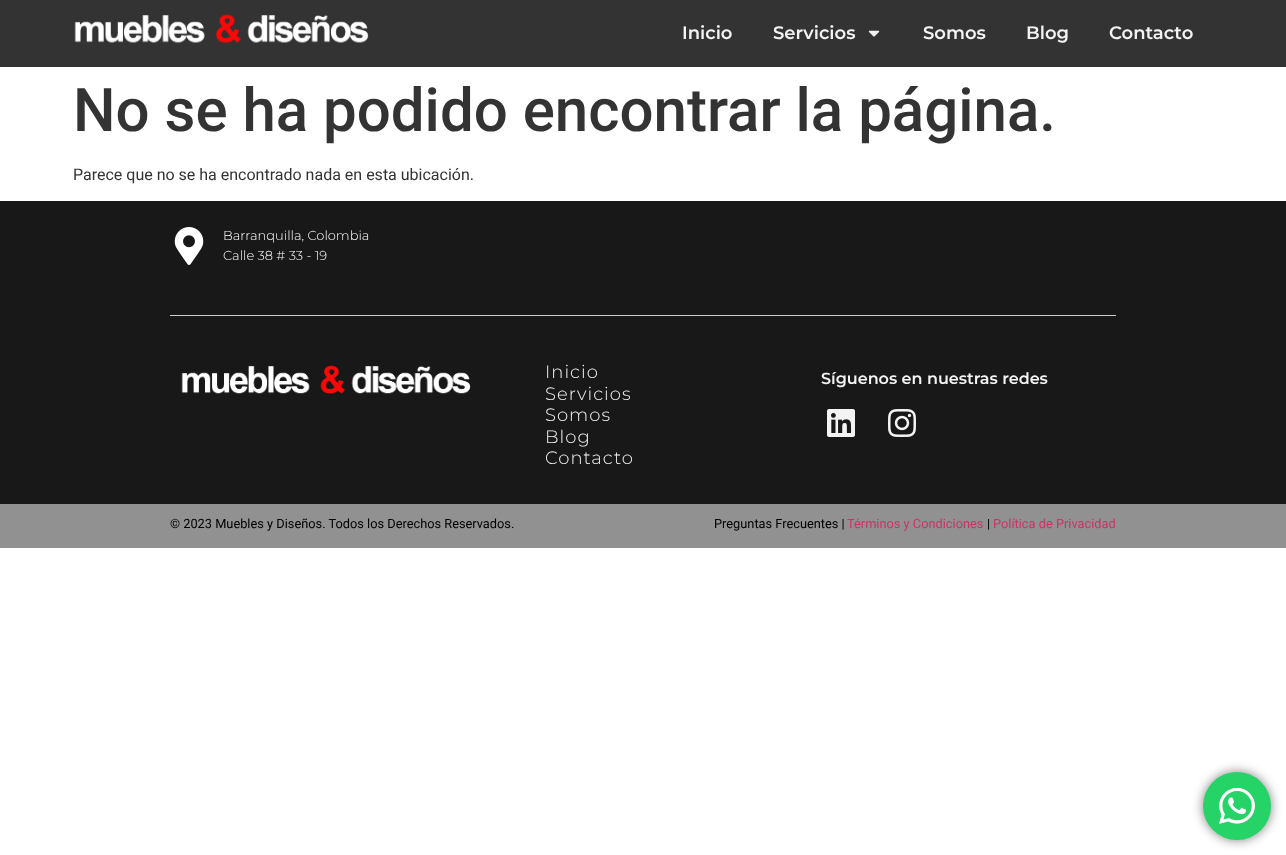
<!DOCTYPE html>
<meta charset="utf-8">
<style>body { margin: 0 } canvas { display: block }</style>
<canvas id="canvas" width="1286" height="855"></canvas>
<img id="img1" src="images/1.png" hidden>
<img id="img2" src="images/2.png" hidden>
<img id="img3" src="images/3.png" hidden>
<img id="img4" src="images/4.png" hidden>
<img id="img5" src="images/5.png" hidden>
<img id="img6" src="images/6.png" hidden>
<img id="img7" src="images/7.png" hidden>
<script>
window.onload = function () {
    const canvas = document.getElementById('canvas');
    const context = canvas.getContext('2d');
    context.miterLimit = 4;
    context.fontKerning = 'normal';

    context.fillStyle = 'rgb(255, 255, 255)';
    context.fillRect(0, 0, 1286, 855);
    context.fillStyle = 'rgb(51, 51, 51)';
    context.fillRect(0, 0, 1286, 67);
    context.drawImage(document.getElementById('img1'), 74, 14, 295, 30);
    context.drawImage(document.getElementById('img2'), 868, 30, 12, 7);
    context.fillStyle = 'rgb(24, 24, 24)';
    context.fillRect(0, 201, 1286, 303);
    context.drawImage(document.getElementById('img3'), 174, 227, 30, 38);
    context.fillStyle = 'rgb(206, 206, 206)';
    context.fillRect(170, 315, 946, 1);
    context.drawImage(document.getElementById('img4'), 181, 365, 290, 29);
    context.drawImage(document.getElementById('img5'), 827, 409, 28, 28);
    context.drawImage(document.getElementById('img6'), 888, 409, 28, 28);
    context.fillStyle = 'rgb(145, 145, 145)';
    context.fillRect(0, 504, 1286, 44);
    context.fillStyle = 'rgba(0, 0, 0, 0.5)';
    context.filter = 'blur(5.5px)';
    context.beginPath();
    context.roundRect(1203, 772, 68, 68, 34);
    context.fill();
    context.filter = 'none';
    context.fillStyle = 'rgb(37, 211, 102)';
    context.beginPath();
    context.arc(1237, 806, 34, 0, 2 * Math.PI);
    context.fill();
    context.drawImage(document.getElementById('img7'), 1219, 788, 36, 36);
    context.font = '600 18px Montserrat';
    context.fillStyle = 'rgb(243, 243, 243)';
    context.fillText('Inicio', 682, 39);
    context.fillText('Servicios', 773, 39);
    context.fillText('Somos', 923, 39);
    context.fillText('Blog', 1026, 39);
    context.fillText('Contacto', 1109, 39);
    context.font = '500 60px Roboto';
    context.fillStyle = 'rgb(51, 51, 51)';
    context.fillText('No se ha podido encontrar la página.', 73, 131);
    context.font = '16px Roboto';
    context.fillText('Parece que no se ha encontrado nada en esta ubicación.', 73, 180);
    context.font = '300 13px Montserrat';
    context.fillStyle = 'rgb(255, 255, 255)';
    context.fillText('Barranquilla, Colombia', 223, 240);
    context.fillText('Calle 38 # 33 - 19', 223, 260);
    context.letterSpacing = '1px';
    context.font = '300 18px Montserrat';
    context.fillStyle = 'rgb(243, 243, 243)';
    context.fillText('Inicio', 545, 378);
    context.fillText('Servicios', 545, 400);
    context.fillText('Somos', 545, 421);
    context.fillText('Blog', 545, 443);
    context.fillText('Contacto', 545, 464);
    context.letterSpacing = '0px';
    context.font = '600 16px Montserrat';
    context.fillText('Síguenos en nuestras redes', 821, 384);
    context.font = '12.8px Roboto';
    context.fillStyle = 'rgb(0, 0, 0)';
    context.fillText('© 2023 Muebles y Diseños. Todos los Derechos Reservados.', 170, 528);
    context.fillText('Preguntas Frecuentes |', 714, 528);
    context.fillStyle = 'rgb(204, 51, 102)';
    context.fillText('Términos y Condiciones', 847, 528);
    context.fillStyle = 'rgb(0, 0, 0)';
    context.fillText('|', 987, 528);
    context.fillStyle = 'rgb(204, 51, 102)';
    context.fillText('Política de Privacidad', 993, 528);
};
</script>
